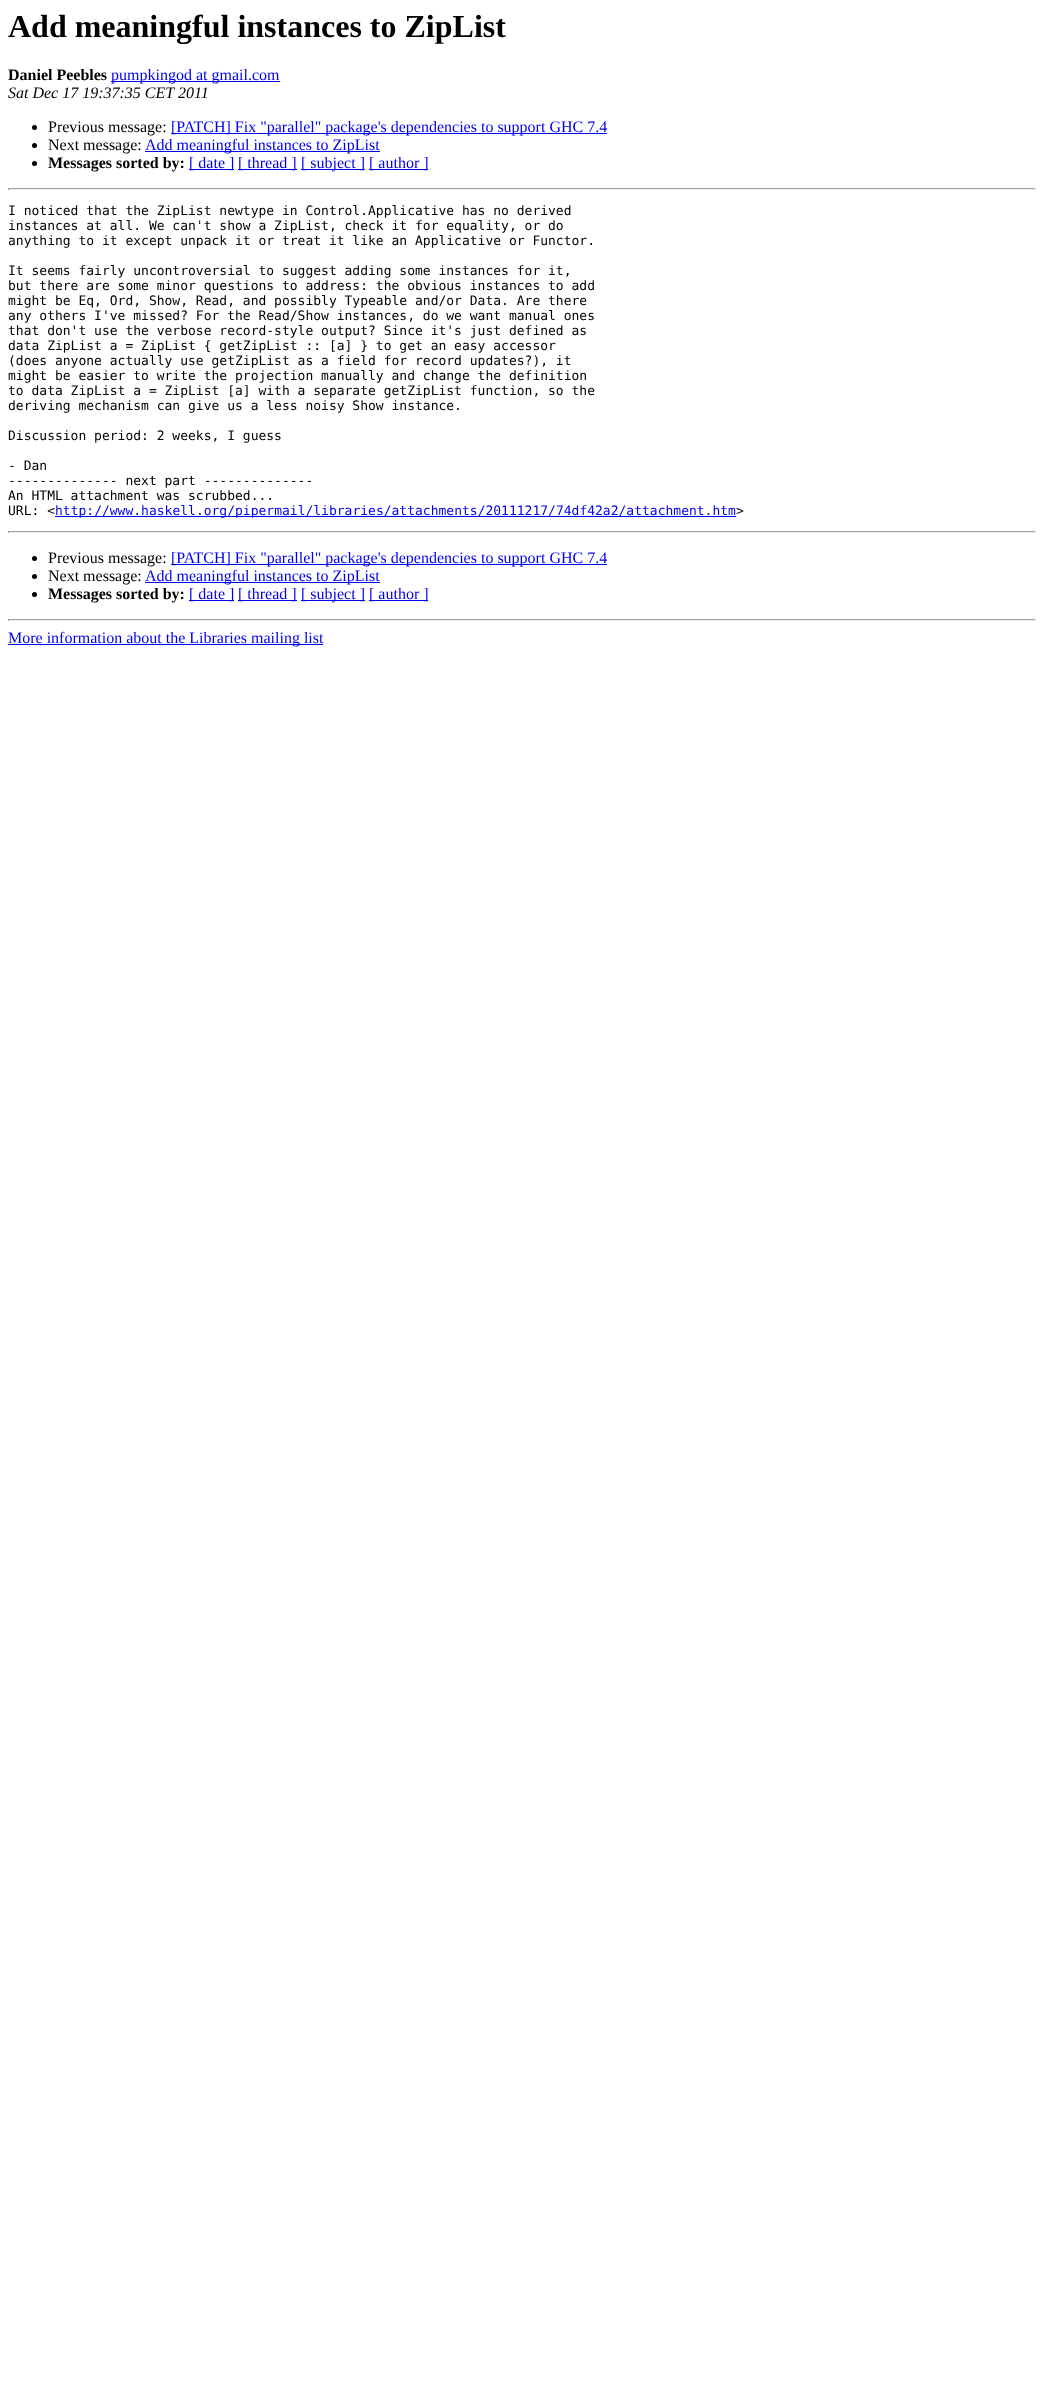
<!DOCTYPE html>
<meta charset="utf-8">
<style>body { margin: 0 } canvas { display: block }</style>
<canvas id="canvas" width="1044" height="2384"></canvas>
<script>
window.onload = function () {
    const canvas = document.getElementById('canvas');
    const context = canvas.getContext('2d');
    context.miterLimit = 4;
    context.fontKerning = 'normal';

    context.fillStyle = 'rgb(255, 255, 255)';
    context.fillRect(0, 0, 1044, 2384);
    context.fillStyle = 'rgb(0, 0, 238)';
    context.fillRect(111, 81, 169, 1);
    context.fillStyle = 'rgb(0, 0, 0)';
    context.beginPath();
    context.arc(34.5, 127.5, 2.5, 0, 2 * Math.PI);
    context.fill();
    context.fillStyle = 'rgb(0, 0, 238)';
    context.fillRect(171, 133, 436, 1);
    context.fillStyle = 'rgb(0, 0, 0)';
    context.beginPath();
    context.arc(34.5, 145.5, 2.5, 0, 2 * Math.PI);
    context.fill();
    context.fillStyle = 'rgb(0, 0, 238)';
    context.fillRect(145, 151, 235, 1);
    context.fillStyle = 'rgb(0, 0, 0)';
    context.beginPath();
    context.arc(34.5, 163.5, 2.5, 0, 2 * Math.PI);
    context.fill();
    context.fillStyle = 'rgb(0, 0, 238)';
    context.fillRect(189, 169, 45, 1);
    context.fillRect(238, 169, 59, 1);
    context.fillRect(301, 169, 64, 1);
    context.fillRect(369, 169, 59, 1);
    context.fillStyle = 'rgb(159, 159, 159)';
    context.fillRect(8, 188, 1028, 1);
    context.fillStyle = 'rgb(238, 238, 238)';
    context.fillRect(1035, 188, 1, 2);
    context.fillRect(8, 189, 1028, 1);
    context.fillStyle = 'rgb(159, 159, 159)';
    context.fillRect(8, 188, 1, 2);
    context.fillStyle = 'rgb(0, 0, 238)';
    context.fillRect(55, 516, 681, 1);
    context.fillStyle = 'rgb(159, 159, 159)';
    context.fillRect(8, 531, 1028, 1);
    context.fillStyle = 'rgb(238, 238, 238)';
    context.fillRect(1035, 531, 1, 2);
    context.fillRect(8, 532, 1028, 1);
    context.fillStyle = 'rgb(159, 159, 159)';
    context.fillRect(8, 531, 1, 2);
    context.fillStyle = 'rgb(0, 0, 0)';
    context.beginPath();
    context.arc(34.5, 558.5, 2.5, 0, 2 * Math.PI);
    context.fill();
    context.fillStyle = 'rgb(0, 0, 238)';
    context.fillRect(171, 564, 436, 1);
    context.fillStyle = 'rgb(0, 0, 0)';
    context.beginPath();
    context.arc(34.5, 576.5, 2.5, 0, 2 * Math.PI);
    context.fill();
    context.fillStyle = 'rgb(0, 0, 238)';
    context.fillRect(145, 582, 235, 1);
    context.fillStyle = 'rgb(0, 0, 0)';
    context.beginPath();
    context.arc(34.5, 594.5, 2.5, 0, 2 * Math.PI);
    context.fill();
    context.fillStyle = 'rgb(0, 0, 238)';
    context.fillRect(189, 600, 45, 1);
    context.fillRect(238, 600, 59, 1);
    context.fillRect(301, 600, 64, 1);
    context.fillRect(369, 600, 59, 1);
    context.fillStyle = 'rgb(159, 159, 159)';
    context.fillRect(8, 619, 1028, 1);
    context.fillStyle = 'rgb(238, 238, 238)';
    context.fillRect(1035, 619, 1, 2);
    context.fillRect(8, 620, 1028, 1);
    context.fillStyle = 'rgb(159, 159, 159)';
    context.fillRect(8, 619, 1, 2);
    context.fillStyle = 'rgb(0, 0, 238)';
    context.fillRect(8, 644, 315, 1);
    context.font = 'bold 32px Liberation Serif';
    context.fillStyle = 'rgb(0, 0, 0)';
    context.fillText('Add meaningful instances to ZipList', 8, 37);
    context.font = 'bold 16px Liberation Serif';
    context.fillText('Daniel Peebles', 8, 80);
    context.font = '16px Liberation Serif';
    context.fillStyle = 'rgb(0, 0, 238)';
    context.fillText('pumpkingod at gmail.com', 111, 80);
    context.font = 'italic 16px Liberation Serif';
    context.fillStyle = 'rgb(0, 0, 0)';
    context.fillText('Sat Dec 17 19:37:35 CET 2011', 8, 98);
    context.font = '16px Liberation Serif';
    context.fillText('Previous message:', 48, 132);
    context.fillStyle = 'rgb(0, 0, 238)';
    context.fillText('[PATCH] Fix "parallel" package\'s dependencies to support GHC 7.4', 171, 132);
    context.fillStyle = 'rgb(0, 0, 0)';
    context.fillText('Next message:', 48, 150);
    context.fillStyle = 'rgb(0, 0, 238)';
    context.fillText('Add meaningful instances to ZipList', 145, 150);
    context.font = 'bold 16px Liberation Serif';
    context.fillStyle = 'rgb(0, 0, 0)';
    context.fillText('Messages sorted by:', 48, 168);
    context.font = '16px Liberation Serif';
    context.fillStyle = 'rgb(0, 0, 238)';
    context.fillText('[ date ]', 189, 168);
    context.fillText('[ thread ]', 238, 168);
    context.fillText('[ subject ]', 301, 168);
    context.fillText('[ author ]', 369, 168);
    context.font = '13px DejaVu Sans Mono';
    context.fillStyle = 'rgb(0, 0, 0)';
    context.fillText('I noticed that the ZipList newtype in Control.Applicative has no derived', 8, 215);
    context.fillText('instances at all. We can\'t show a ZipList, check it for equality, or do', 8, 230);
    context.fillText('anything to it except unpack it or treat it like an Applicative or Functor.', 8, 245);
    context.fillText('It seems fairly uncontroversial to suggest adding some instances for it,', 8, 275);
    context.fillText('but there are some minor questions to address: the obvious instances to add', 8, 290);
    context.fillText('might be Eq, Ord, Show, Read, and possibly Typeable and/or Data. Are there', 8, 305);
    context.fillText('any others I\'ve missed? For the Read/Show instances, do we want manual ones', 8, 320);
    context.fillText('that don\'t use the verbose record-style output? Since it\'s just defined as', 8, 335);
    context.fillText('data ZipList a = ZipList { getZipList :: [a] } to get an easy accessor', 8, 350);
    context.fillText('(does anyone actually use getZipList as a field for record updates?), it', 8, 365);
    context.fillText('might be easier to write the projection manually and change the definition', 8, 380);
    context.fillText('to data ZipList a = ZipList [a] with a separate getZipList function, so the', 8, 395);
    context.fillText('deriving mechanism can give us a less noisy Show instance.', 8, 410);
    context.fillText('Discussion period: 2 weeks, I guess', 8, 440);
    context.fillText('- Dan', 8, 470);
    context.fillText('-------------- next part --------------', 8, 485);
    context.fillText('An HTML attachment was scrubbed...', 8, 500);
    context.fillText('URL: <', 8, 515);
    context.fillStyle = 'rgb(0, 0, 238)';
    context.fillText('http://www.haskell.org/pipermail/libraries/attachments/20111217/74df42a2/attachment.htm', 55, 515);
    context.fillStyle = 'rgb(0, 0, 0)';
    context.fillText('>', 736, 515);
    context.font = '16px Liberation Serif';
    context.fillText('Previous message:', 48, 563);
    context.fillStyle = 'rgb(0, 0, 238)';
    context.fillText('[PATCH] Fix "parallel" package\'s dependencies to support GHC 7.4', 171, 563);
    context.fillStyle = 'rgb(0, 0, 0)';
    context.fillText('Next message:', 48, 581);
    context.fillStyle = 'rgb(0, 0, 238)';
    context.fillText('Add meaningful instances to ZipList', 145, 581);
    context.font = 'bold 16px Liberation Serif';
    context.fillStyle = 'rgb(0, 0, 0)';
    context.fillText('Messages sorted by:', 48, 599);
    context.font = '16px Liberation Serif';
    context.fillStyle = 'rgb(0, 0, 238)';
    context.fillText('[ date ]', 189, 599);
    context.fillText('[ thread ]', 238, 599);
    context.fillText('[ subject ]', 301, 599);
    context.fillText('[ author ]', 369, 599);
    context.fillText('More information about the Libraries mailing list', 8, 643);
};
</script>
